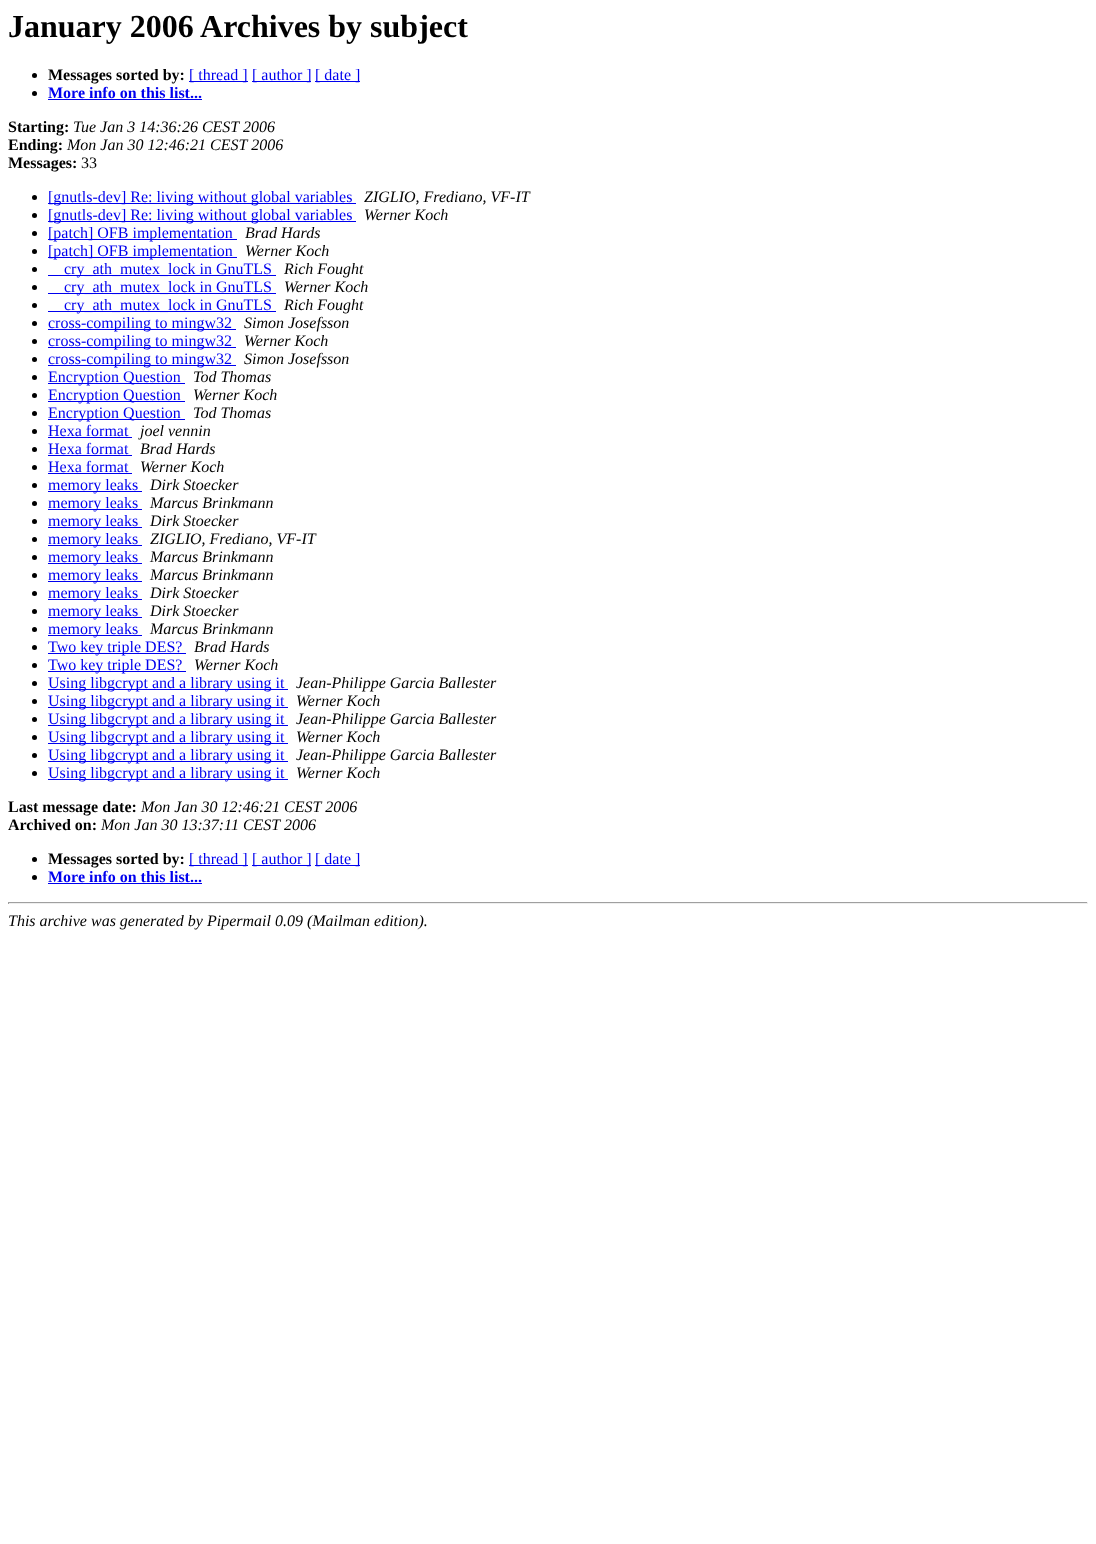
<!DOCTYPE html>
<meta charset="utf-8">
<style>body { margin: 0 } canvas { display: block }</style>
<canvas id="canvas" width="1096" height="1544"></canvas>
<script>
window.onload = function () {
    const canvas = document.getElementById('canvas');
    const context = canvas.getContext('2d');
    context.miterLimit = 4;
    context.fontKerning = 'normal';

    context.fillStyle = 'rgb(255, 255, 255)';
    context.fillRect(0, 0, 1096, 1544);
    context.fillStyle = 'rgb(0, 0, 0)';
    context.beginPath();
    context.arc(34.5, 75.5, 2.5, 0, 2 * Math.PI);
    context.fill();
    context.fillStyle = 'rgb(0, 0, 238)';
    context.fillRect(189, 81, 59, 1);
    context.fillRect(252, 81, 59, 1);
    context.fillRect(315, 81, 45, 1);
    context.fillStyle = 'rgb(0, 0, 0)';
    context.beginPath();
    context.arc(34.5, 93.5, 2.5, 0, 2 * Math.PI);
    context.fill();
    context.fillStyle = 'rgb(0, 0, 238)';
    context.fillRect(48, 99, 154, 1);
    context.fillStyle = 'rgb(0, 0, 0)';
    context.beginPath();
    context.arc(34.5, 197.5, 2.5, 0, 2 * Math.PI);
    context.fill();
    context.fillStyle = 'rgb(0, 0, 238)';
    context.fillRect(48, 203, 308, 1);
    context.fillStyle = 'rgb(0, 0, 0)';
    context.beginPath();
    context.arc(34.5, 215.5, 2.5, 0, 2 * Math.PI);
    context.fill();
    context.fillStyle = 'rgb(0, 0, 238)';
    context.fillRect(48, 221, 308, 1);
    context.fillStyle = 'rgb(0, 0, 0)';
    context.beginPath();
    context.arc(34.5, 233.5, 2.5, 0, 2 * Math.PI);
    context.fill();
    context.fillStyle = 'rgb(0, 0, 238)';
    context.fillRect(48, 239, 189, 1);
    context.fillStyle = 'rgb(0, 0, 0)';
    context.beginPath();
    context.arc(34.5, 251.5, 2.5, 0, 2 * Math.PI);
    context.fill();
    context.fillStyle = 'rgb(0, 0, 238)';
    context.fillRect(48, 257, 189, 1);
    context.fillStyle = 'rgb(0, 0, 0)';
    context.beginPath();
    context.arc(34.5, 269.5, 2.5, 0, 2 * Math.PI);
    context.fill();
    context.fillStyle = 'rgb(0, 0, 238)';
    context.fillRect(48, 275, 228, 1);
    context.fillStyle = 'rgb(0, 0, 0)';
    context.beginPath();
    context.arc(34.5, 287.5, 2.5, 0, 2 * Math.PI);
    context.fill();
    context.fillStyle = 'rgb(0, 0, 238)';
    context.fillRect(48, 293, 228, 1);
    context.fillStyle = 'rgb(0, 0, 0)';
    context.beginPath();
    context.arc(34.5, 305.5, 2.5, 0, 2 * Math.PI);
    context.fill();
    context.fillStyle = 'rgb(0, 0, 238)';
    context.fillRect(48, 311, 228, 1);
    context.fillStyle = 'rgb(0, 0, 0)';
    context.beginPath();
    context.arc(34.5, 323.5, 2.5, 0, 2 * Math.PI);
    context.fill();
    context.fillStyle = 'rgb(0, 0, 238)';
    context.fillRect(48, 329, 188, 1);
    context.fillStyle = 'rgb(0, 0, 0)';
    context.beginPath();
    context.arc(34.5, 341.5, 2.5, 0, 2 * Math.PI);
    context.fill();
    context.fillStyle = 'rgb(0, 0, 238)';
    context.fillRect(48, 347, 188, 1);
    context.fillStyle = 'rgb(0, 0, 0)';
    context.beginPath();
    context.arc(34.5, 359.5, 2.5, 0, 2 * Math.PI);
    context.fill();
    context.fillStyle = 'rgb(0, 0, 238)';
    context.fillRect(48, 365, 188, 1);
    context.fillStyle = 'rgb(0, 0, 0)';
    context.beginPath();
    context.arc(34.5, 377.5, 2.5, 0, 2 * Math.PI);
    context.fill();
    context.fillStyle = 'rgb(0, 0, 238)';
    context.fillRect(48, 383, 137, 1);
    context.fillStyle = 'rgb(0, 0, 0)';
    context.beginPath();
    context.arc(34.5, 395.5, 2.5, 0, 2 * Math.PI);
    context.fill();
    context.fillStyle = 'rgb(0, 0, 238)';
    context.fillRect(48, 401, 137, 1);
    context.fillStyle = 'rgb(0, 0, 0)';
    context.beginPath();
    context.arc(34.5, 413.5, 2.5, 0, 2 * Math.PI);
    context.fill();
    context.fillStyle = 'rgb(0, 0, 238)';
    context.fillRect(48, 419, 137, 1);
    context.fillStyle = 'rgb(0, 0, 0)';
    context.beginPath();
    context.arc(34.5, 431.5, 2.5, 0, 2 * Math.PI);
    context.fill();
    context.fillStyle = 'rgb(0, 0, 238)';
    context.fillRect(48, 437, 84, 1);
    context.fillStyle = 'rgb(0, 0, 0)';
    context.beginPath();
    context.arc(34.5, 449.5, 2.5, 0, 2 * Math.PI);
    context.fill();
    context.fillStyle = 'rgb(0, 0, 238)';
    context.fillRect(48, 455, 84, 1);
    context.fillStyle = 'rgb(0, 0, 0)';
    context.beginPath();
    context.arc(34.5, 467.5, 2.5, 0, 2 * Math.PI);
    context.fill();
    context.fillStyle = 'rgb(0, 0, 238)';
    context.fillRect(48, 473, 84, 1);
    context.fillStyle = 'rgb(0, 0, 0)';
    context.beginPath();
    context.arc(34.5, 485.5, 2.5, 0, 2 * Math.PI);
    context.fill();
    context.fillStyle = 'rgb(0, 0, 238)';
    context.fillRect(48, 491, 94, 1);
    context.fillStyle = 'rgb(0, 0, 0)';
    context.beginPath();
    context.arc(34.5, 503.5, 2.5, 0, 2 * Math.PI);
    context.fill();
    context.fillStyle = 'rgb(0, 0, 238)';
    context.fillRect(48, 509, 94, 1);
    context.fillStyle = 'rgb(0, 0, 0)';
    context.beginPath();
    context.arc(34.5, 521.5, 2.5, 0, 2 * Math.PI);
    context.fill();
    context.fillStyle = 'rgb(0, 0, 238)';
    context.fillRect(48, 527, 94, 1);
    context.fillStyle = 'rgb(0, 0, 0)';
    context.beginPath();
    context.arc(34.5, 539.5, 2.5, 0, 2 * Math.PI);
    context.fill();
    context.fillStyle = 'rgb(0, 0, 238)';
    context.fillRect(48, 545, 94, 1);
    context.fillStyle = 'rgb(0, 0, 0)';
    context.beginPath();
    context.arc(34.5, 557.5, 2.5, 0, 2 * Math.PI);
    context.fill();
    context.fillStyle = 'rgb(0, 0, 238)';
    context.fillRect(48, 563, 94, 1);
    context.fillStyle = 'rgb(0, 0, 0)';
    context.beginPath();
    context.arc(34.5, 575.5, 2.5, 0, 2 * Math.PI);
    context.fill();
    context.fillStyle = 'rgb(0, 0, 238)';
    context.fillRect(48, 581, 94, 1);
    context.fillStyle = 'rgb(0, 0, 0)';
    context.beginPath();
    context.arc(34.5, 593.5, 2.5, 0, 2 * Math.PI);
    context.fill();
    context.fillStyle = 'rgb(0, 0, 238)';
    context.fillRect(48, 599, 94, 1);
    context.fillStyle = 'rgb(0, 0, 0)';
    context.beginPath();
    context.arc(34.5, 611.5, 2.5, 0, 2 * Math.PI);
    context.fill();
    context.fillStyle = 'rgb(0, 0, 238)';
    context.fillRect(48, 617, 94, 1);
    context.fillStyle = 'rgb(0, 0, 0)';
    context.beginPath();
    context.arc(34.5, 629.5, 2.5, 0, 2 * Math.PI);
    context.fill();
    context.fillStyle = 'rgb(0, 0, 238)';
    context.fillRect(48, 635, 94, 1);
    context.fillStyle = 'rgb(0, 0, 0)';
    context.beginPath();
    context.arc(34.5, 647.5, 2.5, 0, 2 * Math.PI);
    context.fill();
    context.fillStyle = 'rgb(0, 0, 238)';
    context.fillRect(48, 653, 138, 1);
    context.fillStyle = 'rgb(0, 0, 0)';
    context.beginPath();
    context.arc(34.5, 665.5, 2.5, 0, 2 * Math.PI);
    context.fill();
    context.fillStyle = 'rgb(0, 0, 238)';
    context.fillRect(48, 671, 138, 1);
    context.fillStyle = 'rgb(0, 0, 0)';
    context.beginPath();
    context.arc(34.5, 683.5, 2.5, 0, 2 * Math.PI);
    context.fill();
    context.fillStyle = 'rgb(0, 0, 238)';
    context.fillRect(48, 689, 240, 1);
    context.fillStyle = 'rgb(0, 0, 0)';
    context.beginPath();
    context.arc(34.5, 701.5, 2.5, 0, 2 * Math.PI);
    context.fill();
    context.fillStyle = 'rgb(0, 0, 238)';
    context.fillRect(48, 707, 240, 1);
    context.fillStyle = 'rgb(0, 0, 0)';
    context.beginPath();
    context.arc(34.5, 719.5, 2.5, 0, 2 * Math.PI);
    context.fill();
    context.fillStyle = 'rgb(0, 0, 238)';
    context.fillRect(48, 725, 240, 1);
    context.fillStyle = 'rgb(0, 0, 0)';
    context.beginPath();
    context.arc(34.5, 737.5, 2.5, 0, 2 * Math.PI);
    context.fill();
    context.fillStyle = 'rgb(0, 0, 238)';
    context.fillRect(48, 743, 240, 1);
    context.fillStyle = 'rgb(0, 0, 0)';
    context.beginPath();
    context.arc(34.5, 755.5, 2.5, 0, 2 * Math.PI);
    context.fill();
    context.fillStyle = 'rgb(0, 0, 238)';
    context.fillRect(48, 761, 240, 1);
    context.fillStyle = 'rgb(0, 0, 0)';
    context.beginPath();
    context.arc(34.5, 773.5, 2.5, 0, 2 * Math.PI);
    context.fill();
    context.fillStyle = 'rgb(0, 0, 238)';
    context.fillRect(48, 779, 240, 1);
    context.fillStyle = 'rgb(0, 0, 0)';
    context.beginPath();
    context.arc(34.5, 859.5, 2.5, 0, 2 * Math.PI);
    context.fill();
    context.fillStyle = 'rgb(0, 0, 238)';
    context.fillRect(189, 865, 59, 1);
    context.fillRect(252, 865, 59, 1);
    context.fillRect(315, 865, 45, 1);
    context.fillStyle = 'rgb(0, 0, 0)';
    context.beginPath();
    context.arc(34.5, 877.5, 2.5, 0, 2 * Math.PI);
    context.fill();
    context.fillStyle = 'rgb(0, 0, 238)';
    context.fillRect(48, 883, 154, 1);
    context.fillStyle = 'rgb(159, 159, 159)';
    context.fillRect(8, 902, 1080, 1);
    context.fillStyle = 'rgb(238, 238, 238)';
    context.fillRect(1087, 902, 1, 2);
    context.fillRect(8, 903, 1080, 1);
    context.fillStyle = 'rgb(159, 159, 159)';
    context.fillRect(8, 902, 1, 2);
    context.font = 'bold 32px Liberation Serif';
    context.fillStyle = 'rgb(0, 0, 0)';
    context.fillText('January 2006 Archives by subject', 8, 37);
    context.font = 'bold 16px Liberation Serif';
    context.fillText('Messages sorted by:', 48, 80);
    context.font = '16px Liberation Serif';
    context.fillStyle = 'rgb(0, 0, 238)';
    context.fillText('[ thread ]', 189, 80);
    context.fillText('[ author ]', 252, 80);
    context.fillText('[ date ]', 315, 80);
    context.font = 'bold 16px Liberation Serif';
    context.fillText('More info on this list...', 48, 98);
    context.fillStyle = 'rgb(0, 0, 0)';
    context.fillText('Starting:', 8, 132);
    context.font = 'italic 16px Liberation Serif';
    context.fillText('Tue Jan 3 14:36:26 CEST 2006', 73, 132);
    context.font = 'bold 16px Liberation Serif';
    context.fillText('Ending:', 8, 150);
    context.font = 'italic 16px Liberation Serif';
    context.fillText('Mon Jan 30 12:46:21 CEST 2006', 67, 150);
    context.font = 'bold 16px Liberation Serif';
    context.fillText('Messages:', 8, 168);
    context.font = '16px Liberation Serif';
    context.fillText('33', 81, 168);
    context.fillStyle = 'rgb(0, 0, 238)';
    context.fillText('[gnutls-dev] Re: living without global variables', 48, 202);
    context.font = 'italic 16px Liberation Serif';
    context.fillStyle = 'rgb(0, 0, 0)';
    context.fillText('ZIGLIO, Frediano, VF-IT', 364, 202);
    context.font = '16px Liberation Serif';
    context.fillStyle = 'rgb(0, 0, 238)';
    context.fillText('[gnutls-dev] Re: living without global variables', 48, 220);
    context.font = 'italic 16px Liberation Serif';
    context.fillStyle = 'rgb(0, 0, 0)';
    context.fillText('Werner Koch', 364, 220);
    context.font = '16px Liberation Serif';
    context.fillStyle = 'rgb(0, 0, 238)';
    context.fillText('[patch] OFB implementation', 48, 238);
    context.font = 'italic 16px Liberation Serif';
    context.fillStyle = 'rgb(0, 0, 0)';
    context.fillText('Brad Hards', 245, 238);
    context.font = '16px Liberation Serif';
    context.fillStyle = 'rgb(0, 0, 238)';
    context.fillText('[patch] OFB implementation', 48, 256);
    context.font = 'italic 16px Liberation Serif';
    context.fillStyle = 'rgb(0, 0, 0)';
    context.fillText('Werner Koch', 245, 256);
    context.font = '16px Liberation Serif';
    context.fillStyle = 'rgb(0, 0, 238)';
    context.fillText('cry_ath_mutex_lock in GnuTLS', 64, 274);
    context.font = 'italic 16px Liberation Serif';
    context.fillStyle = 'rgb(0, 0, 0)';
    context.fillText('Rich Fought', 284, 274);
    context.font = '16px Liberation Serif';
    context.fillStyle = 'rgb(0, 0, 238)';
    context.fillText('cry_ath_mutex_lock in GnuTLS', 64, 292);
    context.font = 'italic 16px Liberation Serif';
    context.fillStyle = 'rgb(0, 0, 0)';
    context.fillText('Werner Koch', 284, 292);
    context.font = '16px Liberation Serif';
    context.fillStyle = 'rgb(0, 0, 238)';
    context.fillText('cry_ath_mutex_lock in GnuTLS', 64, 310);
    context.font = 'italic 16px Liberation Serif';
    context.fillStyle = 'rgb(0, 0, 0)';
    context.fillText('Rich Fought', 284, 310);
    context.font = '16px Liberation Serif';
    context.fillStyle = 'rgb(0, 0, 238)';
    context.fillText('cross-compiling to mingw32', 48, 328);
    context.font = 'italic 16px Liberation Serif';
    context.fillStyle = 'rgb(0, 0, 0)';
    context.fillText('Simon Josefsson', 244, 328);
    context.font = '16px Liberation Serif';
    context.fillStyle = 'rgb(0, 0, 238)';
    context.fillText('cross-compiling to mingw32', 48, 346);
    context.font = 'italic 16px Liberation Serif';
    context.fillStyle = 'rgb(0, 0, 0)';
    context.fillText('Werner Koch', 244, 346);
    context.font = '16px Liberation Serif';
    context.fillStyle = 'rgb(0, 0, 238)';
    context.fillText('cross-compiling to mingw32', 48, 364);
    context.font = 'italic 16px Liberation Serif';
    context.fillStyle = 'rgb(0, 0, 0)';
    context.fillText('Simon Josefsson', 244, 364);
    context.font = '16px Liberation Serif';
    context.fillStyle = 'rgb(0, 0, 238)';
    context.fillText('Encryption Question', 48, 382);
    context.font = 'italic 16px Liberation Serif';
    context.fillStyle = 'rgb(0, 0, 0)';
    context.fillText('Tod Thomas', 193, 382);
    context.font = '16px Liberation Serif';
    context.fillStyle = 'rgb(0, 0, 238)';
    context.fillText('Encryption Question', 48, 400);
    context.font = 'italic 16px Liberation Serif';
    context.fillStyle = 'rgb(0, 0, 0)';
    context.fillText('Werner Koch', 193, 400);
    context.font = '16px Liberation Serif';
    context.fillStyle = 'rgb(0, 0, 238)';
    context.fillText('Encryption Question', 48, 418);
    context.font = 'italic 16px Liberation Serif';
    context.fillStyle = 'rgb(0, 0, 0)';
    context.fillText('Tod Thomas', 193, 418);
    context.font = '16px Liberation Serif';
    context.fillStyle = 'rgb(0, 0, 238)';
    context.fillText('Hexa format', 48, 436);
    context.font = 'italic 16px Liberation Serif';
    context.fillStyle = 'rgb(0, 0, 0)';
    context.fillText('joel vennin', 140, 436);
    context.font = '16px Liberation Serif';
    context.fillStyle = 'rgb(0, 0, 238)';
    context.fillText('Hexa format', 48, 454);
    context.font = 'italic 16px Liberation Serif';
    context.fillStyle = 'rgb(0, 0, 0)';
    context.fillText('Brad Hards', 140, 454);
    context.font = '16px Liberation Serif';
    context.fillStyle = 'rgb(0, 0, 238)';
    context.fillText('Hexa format', 48, 472);
    context.font = 'italic 16px Liberation Serif';
    context.fillStyle = 'rgb(0, 0, 0)';
    context.fillText('Werner Koch', 140, 472);
    context.font = '16px Liberation Serif';
    context.fillStyle = 'rgb(0, 0, 238)';
    context.fillText('memory leaks', 48, 490);
    context.font = 'italic 16px Liberation Serif';
    context.fillStyle = 'rgb(0, 0, 0)';
    context.fillText('Dirk Stoecker', 150, 490);
    context.font = '16px Liberation Serif';
    context.fillStyle = 'rgb(0, 0, 238)';
    context.fillText('memory leaks', 48, 508);
    context.font = 'italic 16px Liberation Serif';
    context.fillStyle = 'rgb(0, 0, 0)';
    context.fillText('Marcus Brinkmann', 150, 508);
    context.font = '16px Liberation Serif';
    context.fillStyle = 'rgb(0, 0, 238)';
    context.fillText('memory leaks', 48, 526);
    context.font = 'italic 16px Liberation Serif';
    context.fillStyle = 'rgb(0, 0, 0)';
    context.fillText('Dirk Stoecker', 150, 526);
    context.font = '16px Liberation Serif';
    context.fillStyle = 'rgb(0, 0, 238)';
    context.fillText('memory leaks', 48, 544);
    context.font = 'italic 16px Liberation Serif';
    context.fillStyle = 'rgb(0, 0, 0)';
    context.fillText('ZIGLIO, Frediano, VF-IT', 150, 544);
    context.font = '16px Liberation Serif';
    context.fillStyle = 'rgb(0, 0, 238)';
    context.fillText('memory leaks', 48, 562);
    context.font = 'italic 16px Liberation Serif';
    context.fillStyle = 'rgb(0, 0, 0)';
    context.fillText('Marcus Brinkmann', 150, 562);
    context.font = '16px Liberation Serif';
    context.fillStyle = 'rgb(0, 0, 238)';
    context.fillText('memory leaks', 48, 580);
    context.font = 'italic 16px Liberation Serif';
    context.fillStyle = 'rgb(0, 0, 0)';
    context.fillText('Marcus Brinkmann', 150, 580);
    context.font = '16px Liberation Serif';
    context.fillStyle = 'rgb(0, 0, 238)';
    context.fillText('memory leaks', 48, 598);
    context.font = 'italic 16px Liberation Serif';
    context.fillStyle = 'rgb(0, 0, 0)';
    context.fillText('Dirk Stoecker', 150, 598);
    context.font = '16px Liberation Serif';
    context.fillStyle = 'rgb(0, 0, 238)';
    context.fillText('memory leaks', 48, 616);
    context.font = 'italic 16px Liberation Serif';
    context.fillStyle = 'rgb(0, 0, 0)';
    context.fillText('Dirk Stoecker', 150, 616);
    context.font = '16px Liberation Serif';
    context.fillStyle = 'rgb(0, 0, 238)';
    context.fillText('memory leaks', 48, 634);
    context.font = 'italic 16px Liberation Serif';
    context.fillStyle = 'rgb(0, 0, 0)';
    context.fillText('Marcus Brinkmann', 150, 634);
    context.font = '16px Liberation Serif';
    context.fillStyle = 'rgb(0, 0, 238)';
    context.fillText('Two key triple DES?', 48, 652);
    context.font = 'italic 16px Liberation Serif';
    context.fillStyle = 'rgb(0, 0, 0)';
    context.fillText('Brad Hards', 194, 652);
    context.font = '16px Liberation Serif';
    context.fillStyle = 'rgb(0, 0, 238)';
    context.fillText('Two key triple DES?', 48, 670);
    context.font = 'italic 16px Liberation Serif';
    context.fillStyle = 'rgb(0, 0, 0)';
    context.fillText('Werner Koch', 194, 670);
    context.font = '16px Liberation Serif';
    context.fillStyle = 'rgb(0, 0, 238)';
    context.fillText('Using libgcrypt and a library using it', 48, 688);
    context.font = 'italic 16px Liberation Serif';
    context.fillStyle = 'rgb(0, 0, 0)';
    context.fillText('Jean-Philippe Garcia Ballester', 296, 688);
    context.font = '16px Liberation Serif';
    context.fillStyle = 'rgb(0, 0, 238)';
    context.fillText('Using libgcrypt and a library using it', 48, 706);
    context.font = 'italic 16px Liberation Serif';
    context.fillStyle = 'rgb(0, 0, 0)';
    context.fillText('Werner Koch', 296, 706);
    context.font = '16px Liberation Serif';
    context.fillStyle = 'rgb(0, 0, 238)';
    context.fillText('Using libgcrypt and a library using it', 48, 724);
    context.font = 'italic 16px Liberation Serif';
    context.fillStyle = 'rgb(0, 0, 0)';
    context.fillText('Jean-Philippe Garcia Ballester', 296, 724);
    context.font = '16px Liberation Serif';
    context.fillStyle = 'rgb(0, 0, 238)';
    context.fillText('Using libgcrypt and a library using it', 48, 742);
    context.font = 'italic 16px Liberation Serif';
    context.fillStyle = 'rgb(0, 0, 0)';
    context.fillText('Werner Koch', 296, 742);
    context.font = '16px Liberation Serif';
    context.fillStyle = 'rgb(0, 0, 238)';
    context.fillText('Using libgcrypt and a library using it', 48, 760);
    context.font = 'italic 16px Liberation Serif';
    context.fillStyle = 'rgb(0, 0, 0)';
    context.fillText('Jean-Philippe Garcia Ballester', 296, 760);
    context.font = '16px Liberation Serif';
    context.fillStyle = 'rgb(0, 0, 238)';
    context.fillText('Using libgcrypt and a library using it', 48, 778);
    context.font = 'italic 16px Liberation Serif';
    context.fillStyle = 'rgb(0, 0, 0)';
    context.fillText('Werner Koch', 296, 778);
    context.font = 'bold 16px Liberation Serif';
    context.fillText('Last message date:', 8, 812);
    context.font = 'italic 16px Liberation Serif';
    context.fillText('Mon Jan 30 12:46:21 CEST 2006', 141, 812);
    context.font = 'bold 16px Liberation Serif';
    context.fillText('Archived on:', 8, 830);
    context.font = 'italic 16px Liberation Serif';
    context.fillText('Mon Jan 30 13:37:11 CEST 2006', 101, 830);
    context.font = 'bold 16px Liberation Serif';
    context.fillText('Messages sorted by:', 48, 864);
    context.font = '16px Liberation Serif';
    context.fillStyle = 'rgb(0, 0, 238)';
    context.fillText('[ thread ]', 189, 864);
    context.fillText('[ author ]', 252, 864);
    context.fillText('[ date ]', 315, 864);
    context.font = 'bold 16px Liberation Serif';
    context.fillText('More info on this list...', 48, 882);
    context.font = 'italic 16px Liberation Serif';
    context.fillStyle = 'rgb(0, 0, 0)';
    context.fillText('This archive was generated by Pipermail 0.09 (Mailman edition).', 8, 926);
};
</script>
